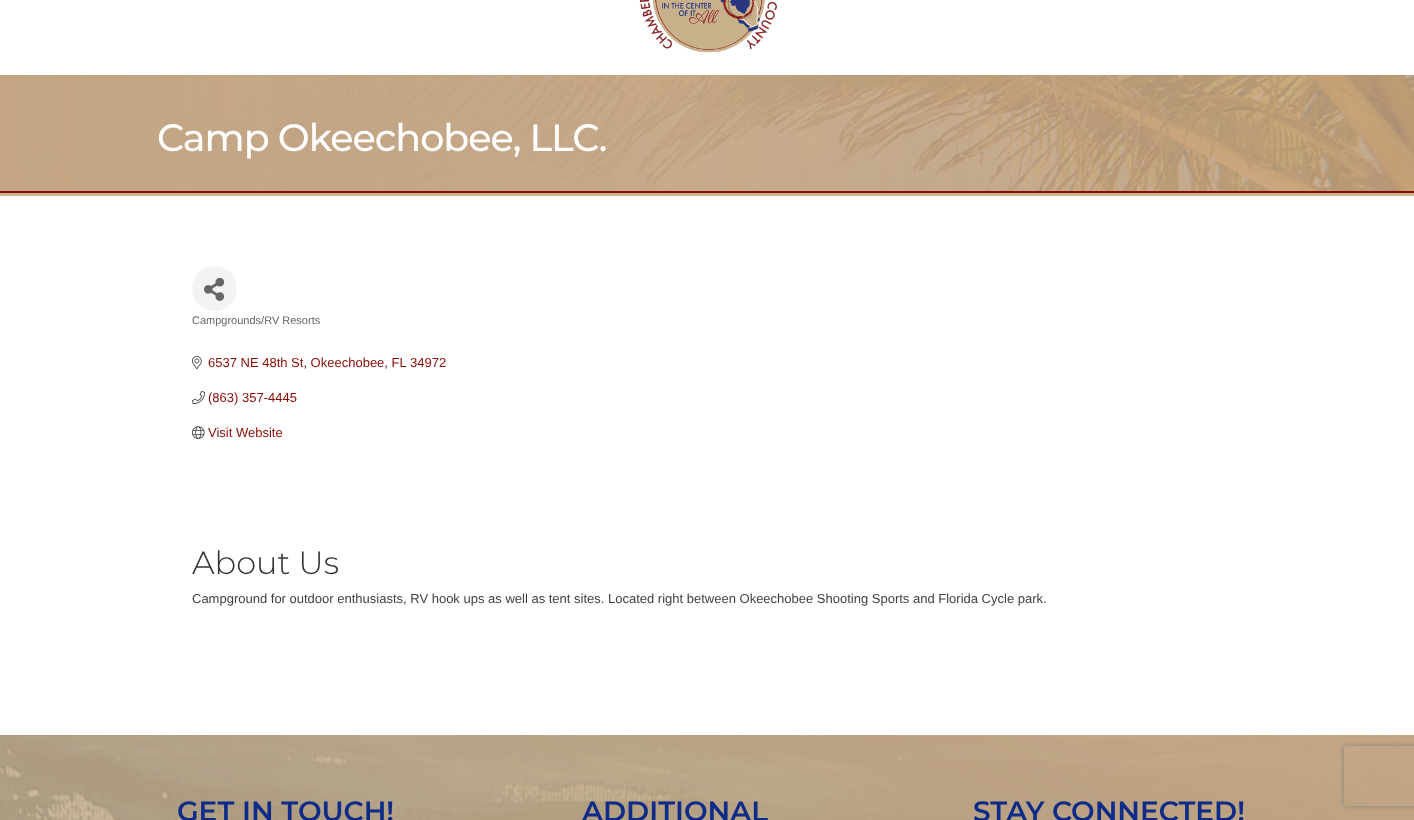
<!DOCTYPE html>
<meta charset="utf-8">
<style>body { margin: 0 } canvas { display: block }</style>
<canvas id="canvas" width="1414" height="820"></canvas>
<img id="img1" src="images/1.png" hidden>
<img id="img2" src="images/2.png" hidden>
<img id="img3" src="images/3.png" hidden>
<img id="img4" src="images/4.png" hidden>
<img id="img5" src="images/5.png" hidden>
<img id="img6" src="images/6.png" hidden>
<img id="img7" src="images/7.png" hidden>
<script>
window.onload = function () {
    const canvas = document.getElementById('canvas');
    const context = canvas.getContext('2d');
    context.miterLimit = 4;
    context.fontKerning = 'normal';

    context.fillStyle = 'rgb(255, 255, 255)';
    context.fillRect(0, 0, 1414, 820);
    context.drawImage(document.getElementById('img1'), 639, 0, 138, 53);
    context.drawImage(document.getElementById('img2'), 0, 75, 1414, 116);
    context.fillStyle = 'rgb(140, 11, 4)';
    context.fillRect(0, 191, 1414, 2);
    context.fillStyle = 'rgb(201, 177, 139)';
    context.fillRect(0, 193, 1414, 3);
    context.fillStyle = 'rgb(243, 243, 243)';
    context.beginPath();
    context.arc(214.5, 288.5, 22.5, 0, 2 * Math.PI);
    context.fill();
    context.drawImage(document.getElementById('img3'), 204, 277, 21, 24);
    context.drawImage(document.getElementById('img4'), 192, 356, 10, 14);
    context.drawImage(document.getElementById('img5'), 192, 391, 13, 14);
    context.drawImage(document.getElementById('img6'), 192, 426, 13, 13);
    context.drawImage(document.getElementById('img7'), 0, 735, 1414, 85);
    context.save();
    context.beginPath();
    context.moveTo(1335, 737);
    context.lineTo(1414, 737);
    context.lineTo(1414, 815);
    context.lineTo(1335, 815);
    context.closePath();
    context.moveTo(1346, 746);
    context.lineTo(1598, 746);
    context.bezierCurveTo(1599, 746, 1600, 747, 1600, 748);
    context.lineTo(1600, 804);
    context.bezierCurveTo(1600, 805, 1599, 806, 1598, 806);
    context.lineTo(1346, 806);
    context.bezierCurveTo(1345, 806, 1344, 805, 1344, 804);
    context.lineTo(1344, 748);
    context.bezierCurveTo(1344, 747, 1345, 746, 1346, 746);
    context.closePath();
    context.clip('evenodd');
    context.fillStyle = 'rgb(128, 128, 128)';
    context.filter = 'blur(2.5px)';
    context.beginPath();
    context.roundRect(1344, 746, 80, 60, 2);
    context.fill();
    context.filter = 'none';
    context.restore();
    context.letterSpacing = '-1px';
    context.font = '500 38px Montserrat';
    context.fillStyle = 'rgb(255, 255, 255)';
    context.fillText('Camp Okeechobee, LLC.', 157, 151);
    context.letterSpacing = '0px';
    context.font = '11px Liberation Sans';
    context.fillStyle = 'rgb(101, 101, 101)';
    context.fillText('Campgrounds/RV Resorts', 192, 324);
    context.font = '13px Liberation Sans';
    context.fillStyle = 'rgb(139, 11, 4)';
    context.fillText('6537 NE 48th St, Okeechobee, FL', 208, 367);
    context.fillText('34972', 410, 367);
    context.fillText('(863) 357-4445', 208, 402);
    context.fillText('Visit Website', 208, 437);
    context.font = '300 32px Montserrat';
    context.fillStyle = 'rgb(51, 51, 51)';
    context.fillText('About Us', 192, 574);
    context.font = '13px Liberation Sans';
    context.fillStyle = 'rgb(63, 63, 63)';
    context.fillText('Campground for outdoor enthusiasts, RV hook ups as well as tent sites. Located right between Okeechobee Shooting Sports and Florida Cycle park.', 192, 603);
    context.font = '600 28px Montserrat';
    context.fillStyle = 'rgb(13, 43, 136)';
    context.fillText('GET IN TOUCH!', 177, 821);
    context.fillText('ADDITIONAL', 582, 821);
    context.fillText('STAY CONNECTED!', 973, 821);
};
</script>
